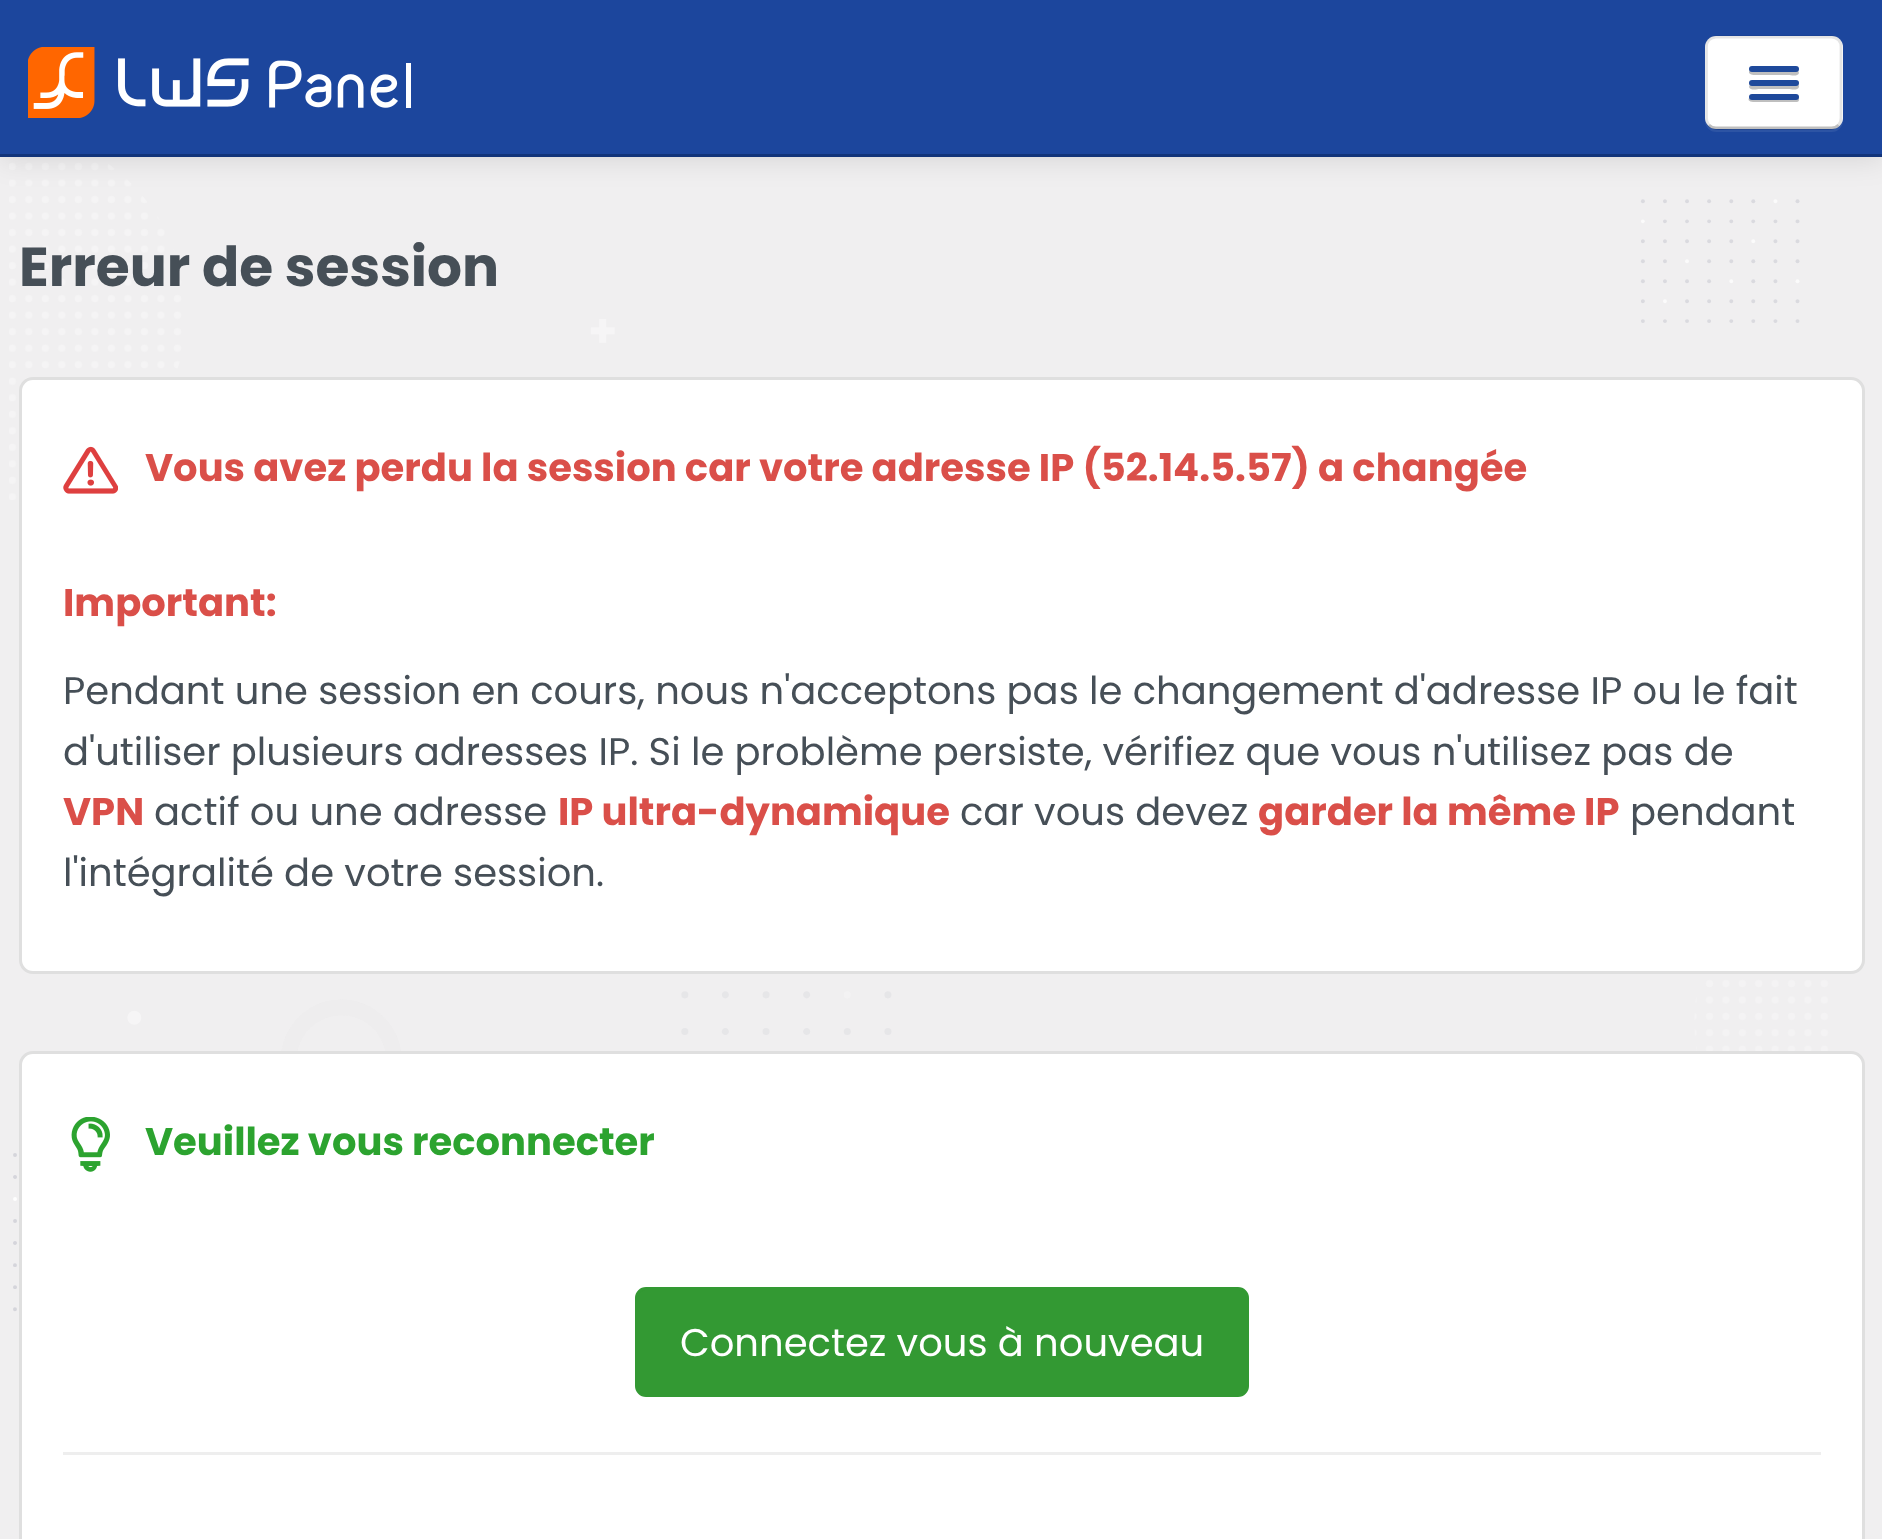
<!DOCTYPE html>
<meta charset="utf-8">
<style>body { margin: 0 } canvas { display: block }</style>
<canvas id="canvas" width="1882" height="1539"></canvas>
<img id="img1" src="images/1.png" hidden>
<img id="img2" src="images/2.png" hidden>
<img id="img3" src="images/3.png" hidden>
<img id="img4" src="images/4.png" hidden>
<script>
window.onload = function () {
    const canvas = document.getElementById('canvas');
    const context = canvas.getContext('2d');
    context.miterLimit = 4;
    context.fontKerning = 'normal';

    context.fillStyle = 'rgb(240, 239, 240)';
    context.fillRect(0, 0, 1882, 1539);
    context.drawImage(document.getElementById('img1'), 9, 157, 1820, 1377);
    context.fillStyle = 'rgba(0, 0, 0, 0.1)';
    context.filter = 'blur(14px)';
    context.beginPath();
    context.rect(0, 3, 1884, 157);
    context.fill();
    context.filter = 'none';
    context.fillStyle = 'rgb(28, 70, 157)';
    context.fillRect(0, 0, 1882, 154);
    context.fillStyle = 'rgb(18, 52, 122)';
    context.fillRect(0, 154, 1882, 3);
    context.drawImage(document.getElementById('img2'), 28, 47, 383, 71);
    context.fillStyle = 'rgb(45, 84, 164)';
    context.beginPath();
    context.moveTo(1705, 118);
    context.lineTo(1705, 121);
    context.bezierCurveTo(1705, 127, 1710, 132, 1716, 132);
    context.lineTo(1832, 132);
    context.bezierCurveTo(1838, 132, 1843, 127, 1843, 121);
    context.lineTo(1843, 50);
    context.lineTo(1842, 47);
    context.lineTo(1842, 120);
    context.bezierCurveTo(1840, 133, 1820, 129, 1812, 129);
    context.lineTo(1735, 129);
    context.bezierCurveTo(1727, 129, 1705, 134, 1705, 118);
    context.closePath();
    context.fill();
    context.fillStyle = 'rgb(255, 255, 255)';
    context.beginPath();
    context.roundRect(1705, 36, 138, 93, 11);
    context.fill();
    context.beginPath();
    context.moveTo(1838.5, 125);
    context.bezierCurveTo(1836.5, 127, 1834, 128, 1831.5, 128);
    context.lineTo(1716, 128);
    context.bezierCurveTo(1713.5, 128, 1711, 127, 1709, 125);
    context.strokeStyle = 'rgba(0, 0, 0, 0.25)';
    context.lineWidth = 2.8;
    context.stroke();
    context.beginPath();
    context.moveTo(1709, 125);
    context.bezierCurveTo(1707.5, 123.5, 1706.5, 121, 1706.5, 118);
    context.lineTo(1706.5, 47);
    context.bezierCurveTo(1706.5, 44, 1707.5, 41.5, 1709, 40);
    context.bezierCurveTo(1711, 38, 1713.5, 37, 1716, 37);
    context.lineTo(1831.5, 37);
    context.bezierCurveTo(1834, 37, 1836.5, 38, 1838.5, 40);
    context.bezierCurveTo(1840, 41.5, 1841, 44, 1841, 47);
    context.lineTo(1841, 118);
    context.bezierCurveTo(1841, 121, 1840, 123.5, 1838.5, 125);
    context.strokeStyle = 'rgba(0, 0, 0, 0.1)';
    context.stroke();
    context.fillStyle = 'rgb(191, 191, 191)';
    context.beginPath();
    context.moveTo(1750, 70);
    context.bezierCurveTo(1745, 76, 1759, 75, 1759, 75);
    context.lineTo(1789, 75);
    context.bezierCurveTo(1790, 75, 1798, 77, 1799, 73);
    context.lineTo(1798, 70);
    context.lineTo(1796, 71);
    context.lineTo(1751, 71);
    context.closePath();
    context.fill();
    context.fillStyle = 'rgb(30, 73, 155)';
    context.beginPath();
    context.roundRect(1749, 66, 50, 6, 3);
    context.fill();
    context.fillStyle = 'rgb(191, 191, 191)';
    context.beginPath();
    context.moveTo(1750, 84);
    context.lineTo(1749, 87);
    context.bezierCurveTo(1750, 91, 1758, 89, 1759, 89);
    context.lineTo(1789, 89);
    context.bezierCurveTo(1790, 89, 1798, 91, 1799, 87);
    context.bezierCurveTo(1799, 86, 1799, 85, 1798, 84);
    context.lineTo(1796, 85);
    context.lineTo(1751, 85);
    context.closePath();
    context.fill();
    context.fillStyle = 'rgb(30, 73, 155)';
    context.beginPath();
    context.roundRect(1749, 80, 50, 6, 3);
    context.fill();
    context.fillStyle = 'rgb(191, 191, 191)';
    context.beginPath();
    context.moveTo(1749, 98);
    context.bezierCurveTo(1746, 103, 1758, 102, 1759, 102);
    context.lineTo(1797, 102);
    context.bezierCurveTo(1799, 102, 1800, 99, 1798, 97);
    context.bezierCurveTo(1798, 98, 1797, 99, 1796, 99);
    context.lineTo(1752, 99);
    context.bezierCurveTo(1751, 99, 1750, 98, 1749, 98);
    context.closePath();
    context.fill();
    context.fillStyle = 'rgb(30, 73, 155)';
    context.beginPath();
    context.roundRect(1749, 94, 50, 6, 3);
    context.fill();
    context.fillStyle = 'rgb(255, 255, 255)';
    context.beginPath();
    context.roundRect(20.5, 378.5, 1843, 594, 12.5);
    context.fill();
    context.strokeStyle = 'rgb(223, 223, 223)';
    context.lineWidth = 3;
    context.stroke();
    context.drawImage(document.getElementById('img3'), 63, 446, 55, 48);
    context.beginPath();
    context.roundRect(20.5, 1052.5, 1843, 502, 12.5);
    context.fill();
    context.stroke();
    context.drawImage(document.getElementById('img4'), 71, 1117, 39, 55);
    context.fillStyle = 'rgb(51, 153, 51)';
    context.beginPath();
    context.roundRect(636.5, 1288.5, 611, 107, 9.5);
    context.fill();
    context.strokeStyle = 'rgb(51, 153, 51)';
    context.stroke();
    context.fillStyle = 'rgb(238, 238, 238)';
    context.fillRect(63, 1452, 1758, 3);
    context.font = 'bold 55px Poppins';
    context.fillStyle = 'rgb(70, 79, 87)';
    context.fillText('Erreur de session', 19, 286);
    context.font = 'bold 38.5px Poppins';
    context.fillStyle = 'rgb(218, 79, 73)';
    context.fillText('Vous avez perdu la session car votre adresse IP (52.14.5.57) a changée', 145, 481);
    context.fillText('Important:', 63, 616);
    context.font = '38.5px Poppins';
    context.fillStyle = 'rgb(70, 79, 87)';
    context.fillText('Pendant une session en cours, nous n\'acceptons pas le changement d\'adresse IP ou le fait', 63, 704);
    context.fillText('d\'utiliser plusieurs adresses IP. Si le problème persiste, vérifiez que vous n\'utilisez pas de', 63, 765);
    context.font = 'bold 38.5px Poppins';
    context.fillStyle = 'rgb(218, 79, 73)';
    context.fillText('VPN', 63, 825);
    context.font = '38.5px Poppins';
    context.fillStyle = 'rgb(70, 79, 87)';
    context.fillText('actif ou une adresse', 154, 825);
    context.font = 'bold 38.5px Poppins';
    context.fillStyle = 'rgb(218, 79, 73)';
    context.fillText('IP ultra-dynamique', 558, 825);
    context.font = '38.5px Poppins';
    context.fillStyle = 'rgb(70, 79, 87)';
    context.fillText('car vous devez', 960, 825);
    context.font = 'bold 38.5px Poppins';
    context.fillStyle = 'rgb(218, 79, 73)';
    context.fillText('garder la même IP', 1258, 825);
    context.font = '38.5px Poppins';
    context.fillStyle = 'rgb(70, 79, 87)';
    context.fillText('pendant', 1630, 825);
    context.fillText('l\'intégralité de votre session.', 63, 886);
    context.font = 'bold 38.5px Poppins';
    context.fillStyle = 'rgb(44, 163, 47)';
    context.fillText('Veuillez vous reconnecter', 145, 1155);
    context.font = '38.5px Poppins';
    context.fillStyle = 'rgb(255, 255, 255)';
    context.fillText('Connectez vous à nouveau', 680, 1356);
};
</script>
